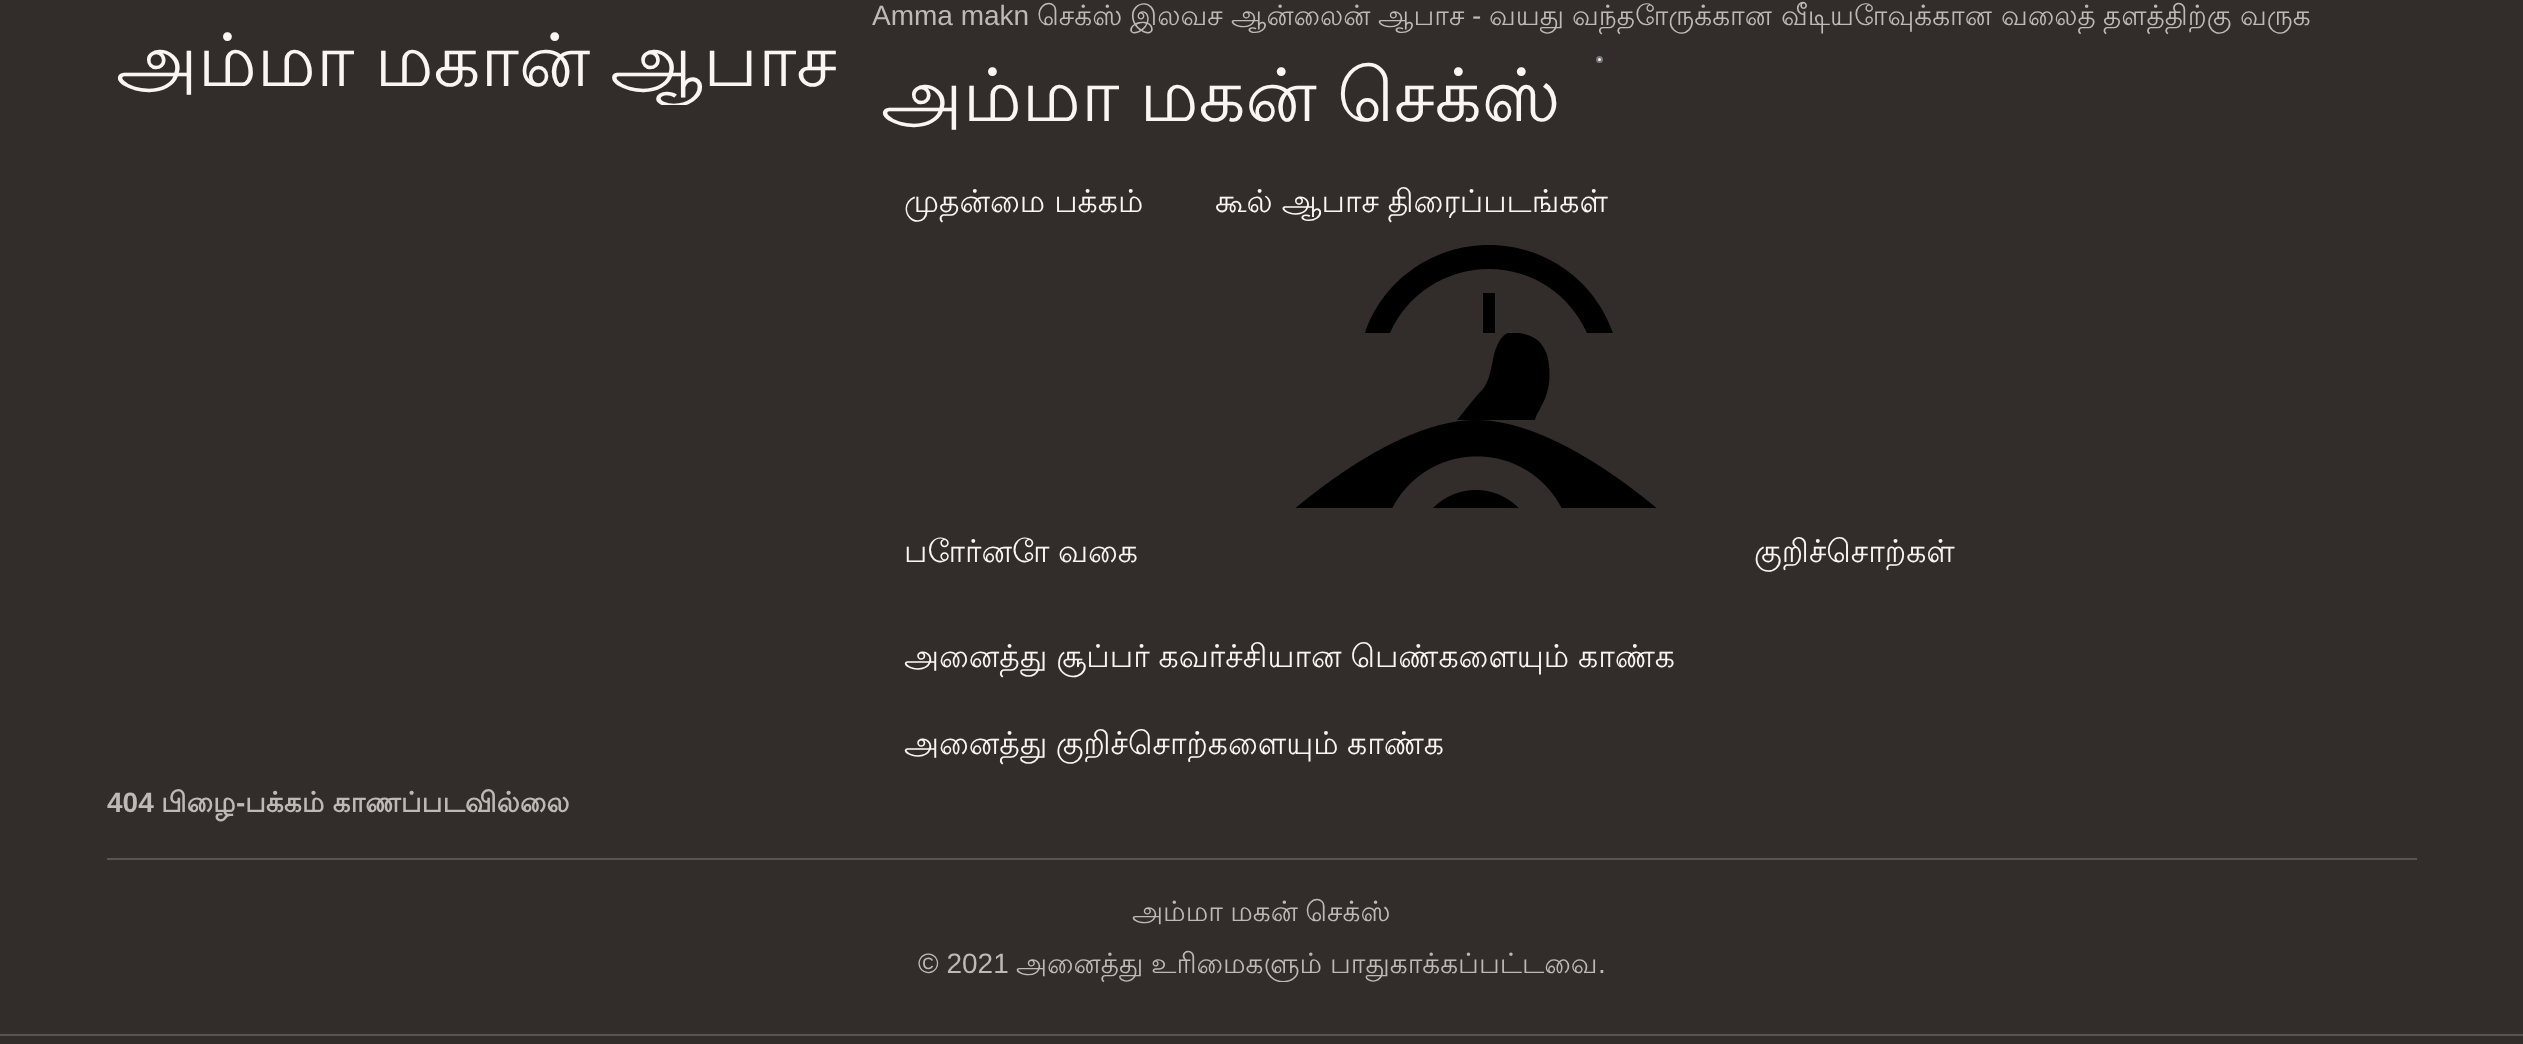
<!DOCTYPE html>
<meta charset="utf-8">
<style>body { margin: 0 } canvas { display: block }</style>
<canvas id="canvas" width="2523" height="1044"></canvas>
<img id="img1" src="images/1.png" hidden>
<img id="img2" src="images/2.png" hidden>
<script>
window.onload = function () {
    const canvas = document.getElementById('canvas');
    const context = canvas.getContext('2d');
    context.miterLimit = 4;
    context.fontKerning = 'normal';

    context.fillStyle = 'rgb(50, 44, 42)';
    context.fillRect(0, 0, 2523, 1044);
    context.fillStyle = 'rgb(90, 84, 82)';
    context.fillRect(0, 1034, 2523, 2);
    context.fillStyle = 'rgb(239, 239, 239)';
    context.beginPath();
    context.arc(1599.5, 59.5, 2.5, 0, 2 * Math.PI);
    context.fill();
    context.strokeStyle = 'rgb(118, 118, 118)';
    context.lineWidth = 2;
    context.stroke();
    context.fillStyle = 'rgb(0, 0, 0)';
    context.beginPath();
    context.moveTo(1390, 333);
    context.lineTo(1365, 333);
    context.bezierCurveTo(1382, 282, 1431, 245, 1489, 245);
    context.bezierCurveTo(1546, 245, 1595, 281, 1613, 333);
    context.lineTo(1587, 333);
    context.bezierCurveTo(1570, 295, 1533, 269, 1489, 269);
    context.bezierCurveTo(1444, 269, 1406, 296, 1390, 333);
    context.closePath();
    context.moveTo(1495, 333);
    context.lineTo(1483, 333);
    context.lineTo(1483, 293);
    context.lineTo(1495, 293);
    context.closePath();
    context.fill('evenodd');
    context.drawImage(document.getElementById('img1'), 1457, 333, 93, 87);
    context.drawImage(document.getElementById('img2'), 1295, 420, 362, 88);
    context.fillStyle = 'rgb(90, 84, 82)';
    context.fillRect(107, 858, 2310, 2);
    context.save();
    context.beginPath();
    context.rect(116, 18, 721, 87);
    context.clip();
    context.wordSpacing = '-2px';
    context.font = '73.5px Lohit Tamil';
    context.fillStyle = 'rgb(250, 244, 242)';
    context.fillText('அம்மா மகான் ஆபாச', 116, 86);
    context.restore();
    context.font = '28px Liberation Sans';
    context.fillStyle = 'rgb(190, 184, 182)';
    context.fillText('Amma makn', 872, 25);
    context.font = '28px Lohit Tamil';
    context.fillText('செக்ஸ்', 1037, 25);
    context.fillText('இலவச', 1130, 25);
    context.fillText('ஆன்லைன்', 1231, 25);
    context.fillText('ஆபாச', 1378, 25);
    context.font = '28px Liberation Sans';
    context.fillText('-', 1472, 25);
    context.font = '28px Lohit Tamil';
    context.fillText('வயது', 1489, 25);
    context.fillText('வந்தோருக்கான', 1572, 25);
    context.fillText('வீடியோவுக்கான', 1781, 25);
    context.fillText('வலைத்', 2001, 25);
    context.fillText('தளத்திற்கு', 2103, 25);
    context.fillText('வருக', 2240, 25);
    context.wordSpacing = '-2px';
    context.font = '73.5px Lohit Tamil';
    context.fillStyle = 'rgb(250, 244, 242)';
    context.fillText('அம்மா மகன் செக்ஸ்', 881, 121);
    context.wordSpacing = '-0.5px';
    context.font = '31.5px Lohit Tamil';
    context.fillText('முதன்மை பக்கம்', 904, 212);
    context.fillText('கூல் ஆபாச திரைப்படங்கள்', 1215, 212);
    context.wordSpacing = '-1px';
    context.fillText('போர்னோ வகை', 904, 562);
    context.wordSpacing = '-0.5px';
    context.fillText('அனைத்து சூப்பர் கவர்ச்சியான பெண்களையும் காண்க', 904, 667);
    context.wordSpacing = '-1px';
    context.fillText('அனைத்து குறிச்சொற்களையும் காண்க', 904, 754);
    context.wordSpacing = '0px';
    context.fillText('குறிச்சொற்கள்', 1754, 562);
    context.font = 'bold 28px Liberation Sans';
    context.fillStyle = 'rgb(190, 184, 182)';
    context.fillText('404', 107, 812);
    context.font = 'bold 28px Lohit Tamil';
    context.fillText('பிழை', 161, 812);
    context.font = 'bold 28px Liberation Sans';
    context.fillText('-', 236, 812);
    context.font = 'bold 28px Lohit Tamil';
    context.fillText('பக்கம் காணப்படவில்லை', 245, 812);
    context.wordSpacing = '-1px';
    context.font = '28px Lohit Tamil';
    context.fillText('அம்மா மகன் செக்ஸ்', 1132, 921);
    context.wordSpacing = '0px';
    context.font = '28px Liberation Sans';
    context.fillText('© 2021', 918, 973);
    context.font = '28px Lohit Tamil';
    context.fillText('அனைத்து', 1016, 973);
    context.save();
    context.beginPath();
    context.rect(116, 877, 2292, 105);
    context.clip();
    context.fillText('உரிமைகளும்', 1151, 973);
    context.restore();
    context.fillText('பாதுகாக்கப்பட்டவை', 1330, 973);
    context.font = '28px Liberation Sans';
    context.fillText('.', 1598, 973);
};
</script>
